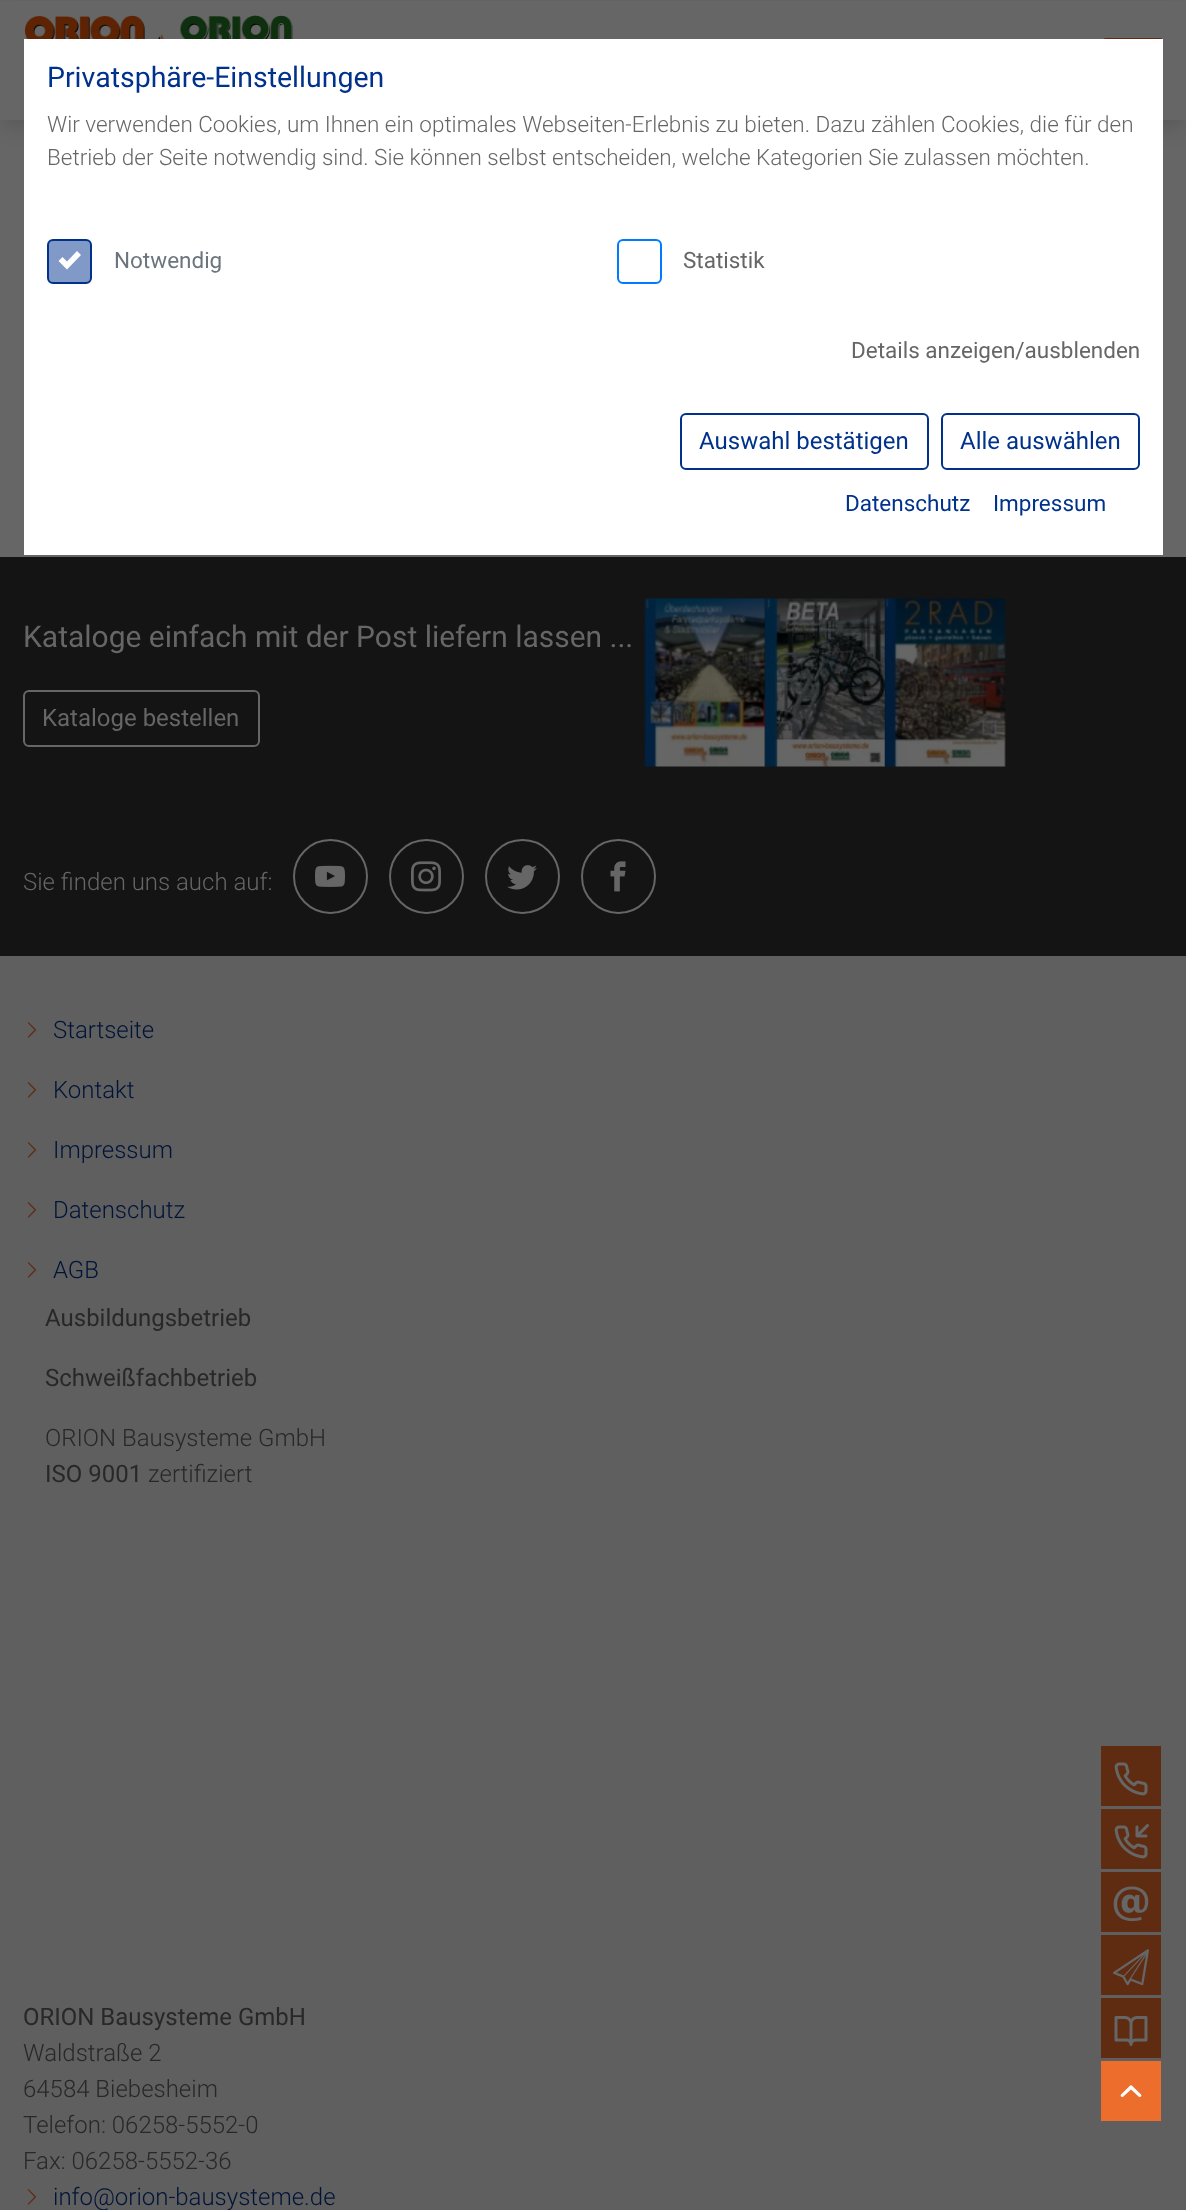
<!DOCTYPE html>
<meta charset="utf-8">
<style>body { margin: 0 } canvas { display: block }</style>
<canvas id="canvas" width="1186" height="2210"></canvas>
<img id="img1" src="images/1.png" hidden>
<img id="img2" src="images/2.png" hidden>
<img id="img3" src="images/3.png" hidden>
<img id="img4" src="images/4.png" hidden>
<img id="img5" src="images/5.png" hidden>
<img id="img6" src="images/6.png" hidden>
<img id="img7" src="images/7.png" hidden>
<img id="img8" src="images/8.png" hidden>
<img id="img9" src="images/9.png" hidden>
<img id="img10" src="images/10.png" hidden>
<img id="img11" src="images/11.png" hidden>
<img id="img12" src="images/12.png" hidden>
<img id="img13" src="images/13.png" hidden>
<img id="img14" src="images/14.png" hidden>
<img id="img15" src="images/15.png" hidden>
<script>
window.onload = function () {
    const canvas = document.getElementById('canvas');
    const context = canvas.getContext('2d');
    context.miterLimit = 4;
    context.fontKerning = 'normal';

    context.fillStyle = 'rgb(102, 102, 102)';
    context.fillRect(0, 0, 1186, 2210);
    context.fillStyle = 'rgba(0, 0, 0, 0.15)';
    context.filter = 'blur(11px)';
    context.beginPath();
    context.rect(3, 11, 1181, 114);
    context.fill();
    context.filter = 'none';
    context.fillStyle = 'rgb(102, 102, 102)';
    context.fillRect(0, 1, 1186, 119);
    context.fillStyle = 'rgb(95, 44, 18)';
    context.beginPath();
    context.roundRect(1103, 38, 60, 6, 3);
    context.fill();
    context.fillStyle = 'rgb(255, 255, 255)';
    context.fillRect(24, 39, 1139, 516);
    context.fillStyle = 'rgb(128, 153, 198)';
    context.beginPath();
    context.roundRect(48, 240, 43, 43, 5);
    context.fill();
    context.strokeStyle = 'rgb(0, 50, 140)';
    context.lineWidth = 2;
    context.stroke();
    context.fillStyle = 'rgb(255, 255, 255)';
    context.beginPath();
    context.moveTo(77, 251);
    context.lineTo(67, 261.5);
    context.lineTo(62.5, 257);
    context.lineTo(58.5, 261);
    context.lineTo(67, 269.5);
    context.lineTo(81, 255);
    context.closePath();
    context.fill();
    context.beginPath();
    context.roundRect(618, 240, 43, 43, 5);
    context.strokeStyle = 'rgb(0, 123, 255)';
    context.stroke();
    context.beginPath();
    context.roundRect(681, 414, 247, 55, 5);
    context.strokeStyle = 'rgb(0, 50, 140)';
    context.stroke();
    context.beginPath();
    context.roundRect(942, 414, 197, 55, 5);
    context.stroke();
    context.drawImage(document.getElementById('img1'), 24, 15, 270, 24);
    context.fillStyle = 'rgb(95, 95, 95)';
    context.fillRect(0, 956, 1186, 1254);
    context.fillStyle = 'rgb(20, 20, 20)';
    context.fillRect(0, 557, 1186, 399);
    context.beginPath();
    context.roundRect(24, 691, 235, 55, 5);
    context.strokeStyle = 'rgb(102, 102, 102)';
    context.stroke();
    context.drawImage(document.getElementById('img2'), 644, 598, 122, 169);
    context.drawImage(document.getElementById('img3'), 764, 598, 121, 169);
    context.drawImage(document.getElementById('img4'), 884, 598, 122, 169);
    context.beginPath();
    context.arc(330.5, 876.5, 36.5, 0, 2 * Math.PI);
    context.stroke();
    context.drawImage(document.getElementById('img5'), 315, 865, 30, 22);
    context.beginPath();
    context.arc(426.5, 876.5, 36.5, 0, 2 * Math.PI);
    context.stroke();
    context.drawImage(document.getElementById('img6'), 411, 861, 30, 31);
    context.beginPath();
    context.arc(522.5, 876.5, 36.5, 0, 2 * Math.PI);
    context.stroke();
    context.drawImage(document.getElementById('img7'), 507, 865, 30, 25);
    context.beginPath();
    context.arc(618.5, 876.5, 36.5, 0, 2 * Math.PI);
    context.stroke();
    context.drawImage(document.getElementById('img8'), 610, 861, 16, 31);
    context.drawImage(document.getElementById('img9'), 27, 1022, 10, 16);
    context.drawImage(document.getElementById('img9'), 27, 1082, 10, 16);
    context.drawImage(document.getElementById('img9'), 27, 1142, 10, 16);
    context.drawImage(document.getElementById('img9'), 27, 1202, 10, 16);
    context.drawImage(document.getElementById('img9'), 27, 1262, 10, 16);
    context.drawImage(document.getElementById('img9'), 27, 2189, 10, 16);
    context.fillStyle = 'rgb(95, 44, 18)';
    context.fillRect(1101, 1746, 60, 60);
    context.drawImage(document.getElementById('img10'), 1114, 1762, 34, 34);
    context.fillRect(1101, 1809, 60, 60);
    context.drawImage(document.getElementById('img11'), 1114, 1824, 35, 35);
    context.fillRect(1101, 1872, 60, 60);
    context.drawImage(document.getElementById('img12'), 1113, 1886, 36, 36);
    context.fillRect(1101, 1935, 60, 60);
    context.drawImage(document.getElementById('img13'), 1113, 1949, 36, 37);
    context.fillRect(1101, 1998, 60, 60);
    context.drawImage(document.getElementById('img14'), 1114, 2016, 34, 30);
    context.fillStyle = 'rgb(237, 109, 45)';
    context.fillRect(1101, 2061, 60, 60);
    context.drawImage(document.getElementById('img15'), 1120, 2085, 22, 12);
    context.font = '28.5px Roboto';
    context.fillStyle = 'rgb(0, 50, 140)';
    context.fillText('Privatsphäre-Einstellungen', 47, 87);
    context.font = '300 22.5px Roboto';
    context.fillStyle = 'rgb(102, 102, 102)';
    context.fillText('Wir verwenden Cookies, um Ihnen ein optimales Webseiten-Erlebnis zu bieten. Dazu zählen Cookies, die für den', 47, 132);
    context.fillText('Betrieb der Seite notwendig sind. Sie können selbst entscheiden, welche Kategorien Sie zulassen möchten.', 47, 165);
    context.font = '22.5px Roboto';
    context.fillStyle = 'rgb(108, 117, 125)';
    context.fillText('Notwendig', 114, 268);
    context.fillStyle = 'rgb(102, 102, 102)';
    context.fillText('Statistik', 683, 268);
    context.fillText('Details anzeigen/ausblenden', 851, 358);
    context.font = '24px Roboto';
    context.fillStyle = 'rgb(0, 50, 140)';
    context.fillText('Auswahl bestätigen', 699, 449);
    context.fillText('Alle auswählen', 960, 449);
    context.font = '22.5px Roboto';
    context.fillText('Datenschutz', 845, 511);
    context.fillText('Impressum', 993, 511);
    context.font = '30px Roboto';
    context.fillStyle = 'rgb(102, 102, 102)';
    context.fillText('Kataloge einfach mit der Post liefern lassen ...', 23, 647);
    context.font = '24px Roboto';
    context.fillText('Kataloge bestellen', 42, 726);
    context.font = '300 24px Roboto';
    context.fillText('Sie finden uns auch auf:', 23, 890);
    context.fillStyle = 'rgb(0, 20, 56)';
    context.fillText('Startseite', 53, 1038);
    context.fillText('Kontakt', 53, 1098);
    context.fillText('Impressum', 53, 1158);
    context.fillText('Datenschutz', 53, 1218);
    context.fillText('AGB', 53, 1278);
    context.font = '24px Roboto';
    context.fillStyle = 'rgb(40, 40, 40)';
    context.fillText('Ausbildungsbetrieb', 45, 1326);
    context.fillText('Schweißfachbetrieb', 45, 1386);
    context.font = '300 24px Roboto';
    context.fillText('ORION Bausysteme GmbH', 45, 1446);
    context.font = '24px Roboto';
    context.fillText('ISO 9001', 45, 1482);
    context.font = '300 24px Roboto';
    context.fillText('zertifiziert', 148, 1482);
    context.font = '24px Roboto';
    context.fillText('ORION Bausysteme GmbH', 23, 2025);
    context.font = '300 24px Roboto';
    context.fillText('Waldstraße 2', 23, 2061);
    context.fillText('64584 Biebesheim', 23, 2097);
    context.fillText('Telefon: 06258-5552-0', 23, 2133);
    context.fillText('Fax: 06258-5552-36', 23, 2169);
    context.fillStyle = 'rgb(0, 20, 56)';
    context.fillText('info@orion-bausysteme.de', 53, 2205);
};
</script>
